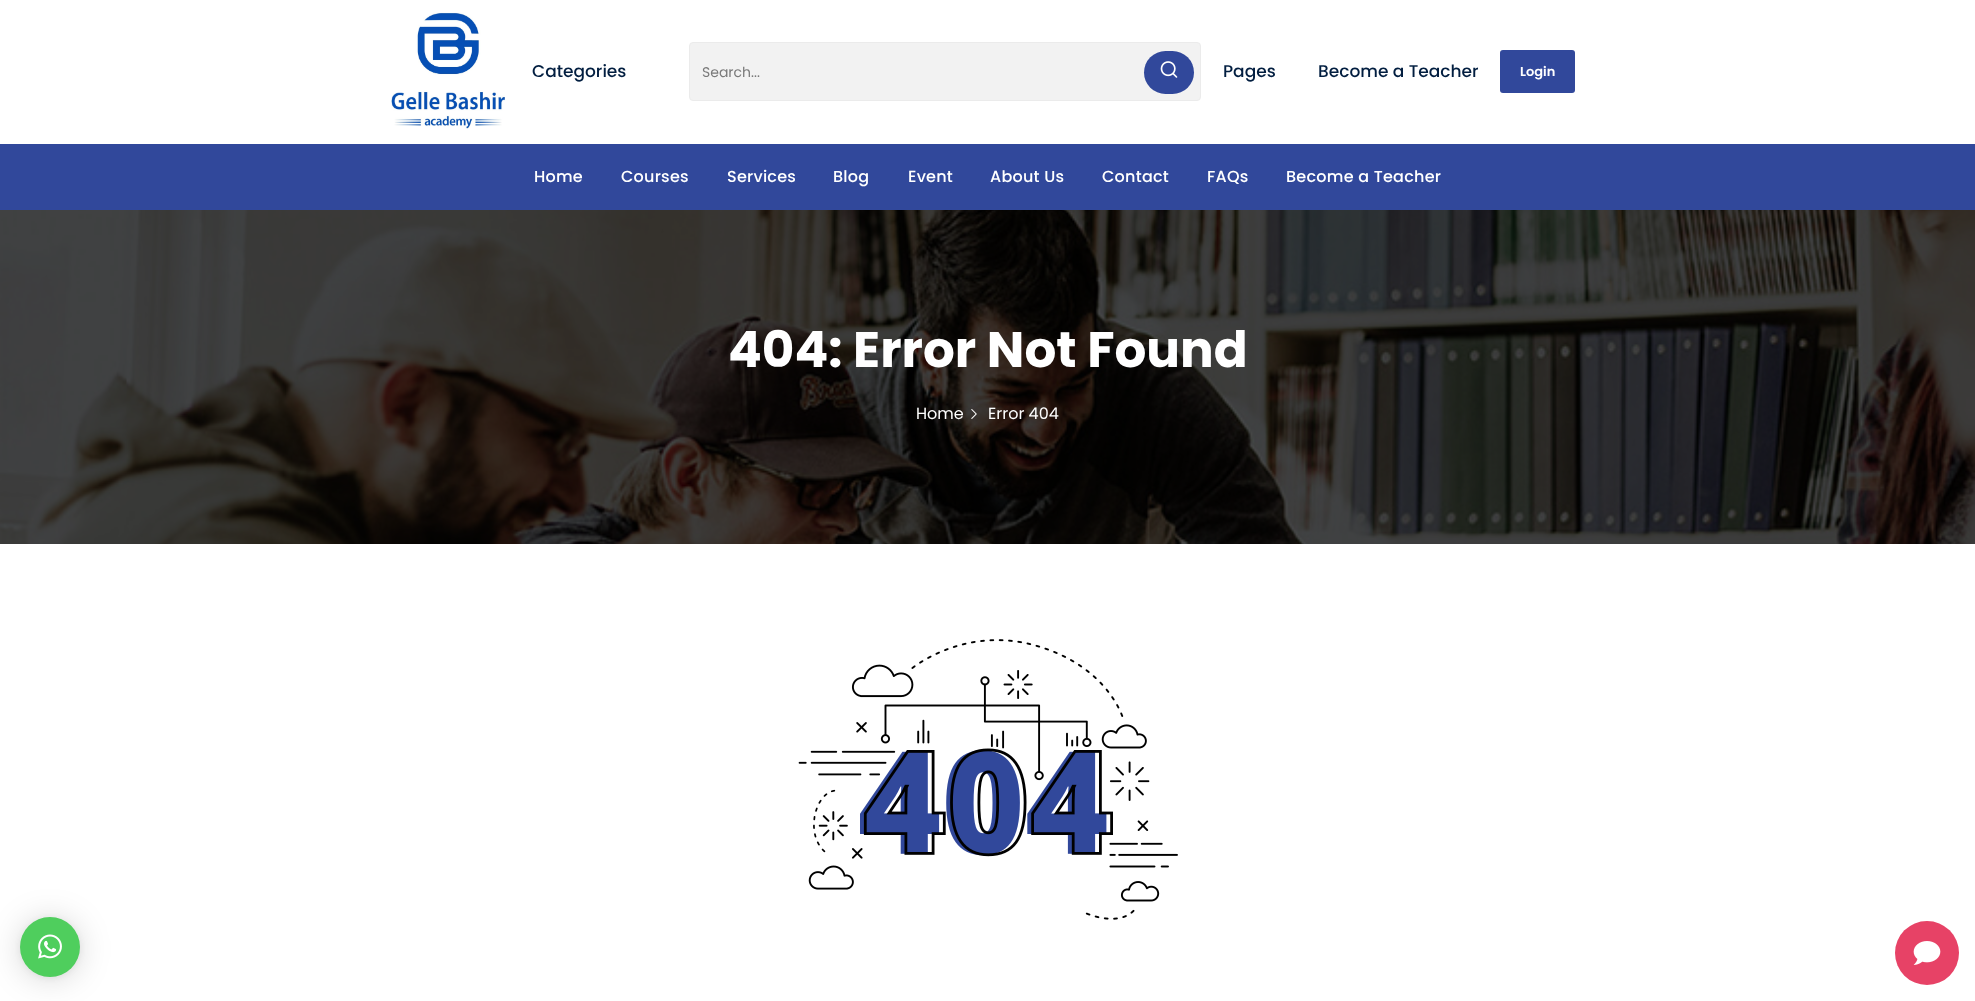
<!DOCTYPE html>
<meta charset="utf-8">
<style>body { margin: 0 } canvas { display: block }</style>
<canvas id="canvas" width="1975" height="1001"></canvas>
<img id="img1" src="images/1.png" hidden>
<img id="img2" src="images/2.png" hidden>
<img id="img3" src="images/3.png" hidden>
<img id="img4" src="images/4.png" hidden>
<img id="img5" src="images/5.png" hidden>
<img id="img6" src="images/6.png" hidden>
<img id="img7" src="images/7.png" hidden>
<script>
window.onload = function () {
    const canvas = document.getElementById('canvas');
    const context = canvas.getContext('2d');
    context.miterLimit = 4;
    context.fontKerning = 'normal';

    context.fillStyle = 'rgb(255, 255, 255)';
    context.fillRect(0, 0, 1975, 1001);
    context.drawImage(document.getElementById('img1'), 391, 12, 114, 117);
    context.fillStyle = 'rgb(242, 242, 242)';
    context.beginPath();
    context.roundRect(689.5, 42.5, 511, 58, 3.5);
    context.fill();
    context.strokeStyle = 'rgb(235, 235, 235)';
    context.stroke();
    context.fillStyle = 'rgb(49, 72, 155)';
    context.beginPath();
    context.roundRect(1144, 51, 50, 43, 21.5);
    context.fill();
    context.drawImage(document.getElementById('img2'), 1160, 61, 18, 17);
    context.beginPath();
    context.roundRect(1500, 50, 75, 43, 3);
    context.fill();
    context.fillRect(0, 144, 1975, 66);
    context.drawImage(document.getElementById('img3'), 0, 210, 1975, 334);
    context.drawImage(document.getElementById('img4'), 971, 409, 6, 10);
    context.drawImage(document.getElementById('img5'), 798, 639, 380, 281);
    context.fillStyle = 'rgba(0, 0, 0, 0.16)';
    context.filter = 'blur(16px)';
    context.beginPath();
    context.roundRect(20, 919, 60, 60, 30);
    context.fill();
    context.filter = 'none';
    context.fillStyle = 'rgba(0, 0, 0, 0.06)';
    context.filter = 'blur(3px)';
    context.beginPath();
    context.roundRect(20, 918, 60, 60, 30);
    context.fill();
    context.filter = 'none';
    context.fillStyle = 'rgb(79, 206, 93)';
    context.beginPath();
    context.arc(50, 947, 30, 0, 2 * Math.PI);
    context.fill();
    context.drawImage(document.getElementById('img6'), 38, 934, 24, 25);
    context.fillStyle = 'rgb(231, 66, 102)';
    context.beginPath();
    context.arc(1927, 953, 32, 0, 2 * Math.PI);
    context.fill();
    context.drawImage(document.getElementById('img7'), 1913, 941, 28, 24);
    context.font = '500 17px Poppins';
    context.fillStyle = 'rgb(2, 30, 64)';
    context.fillText('Categories', 532, 77);
    context.font = '14px Poppins';
    context.fillStyle = 'rgb(122, 122, 122)';
    context.fillText('Search...', 702, 77);
    context.font = '500 17px Poppins';
    context.fillStyle = 'rgb(2, 30, 64)';
    context.fillText('Pages', 1223, 77);
    context.fillText('Become a Teacher', 1318, 77);
    context.font = '600 13px Poppins';
    context.fillStyle = 'rgb(255, 255, 255)';
    context.fillText('Login', 1520, 76);
    context.letterSpacing = '0.25px';
    context.font = '500 16px Poppins';
    context.fillText('Home', 534, 182);
    context.fillText('Courses', 621, 182);
    context.fillText('Services', 727, 182);
    context.fillText('Blog', 833, 182);
    context.fillText('Event', 908, 182);
    context.fillText('About Us', 990, 182);
    context.fillText('Contact', 1102, 182);
    context.fillText('FAQs', 1207, 182);
    context.fillText('Become a Teacher', 1286, 182);
    context.letterSpacing = '0px';
    context.font = 'bold 50px Poppins';
    context.fillText('404: Error Not Found', 728, 367);
    context.font = '16px Poppins';
    context.fillText('Home', 916, 419);
    context.fillText('Error 404', 988, 419);
};
</script>
